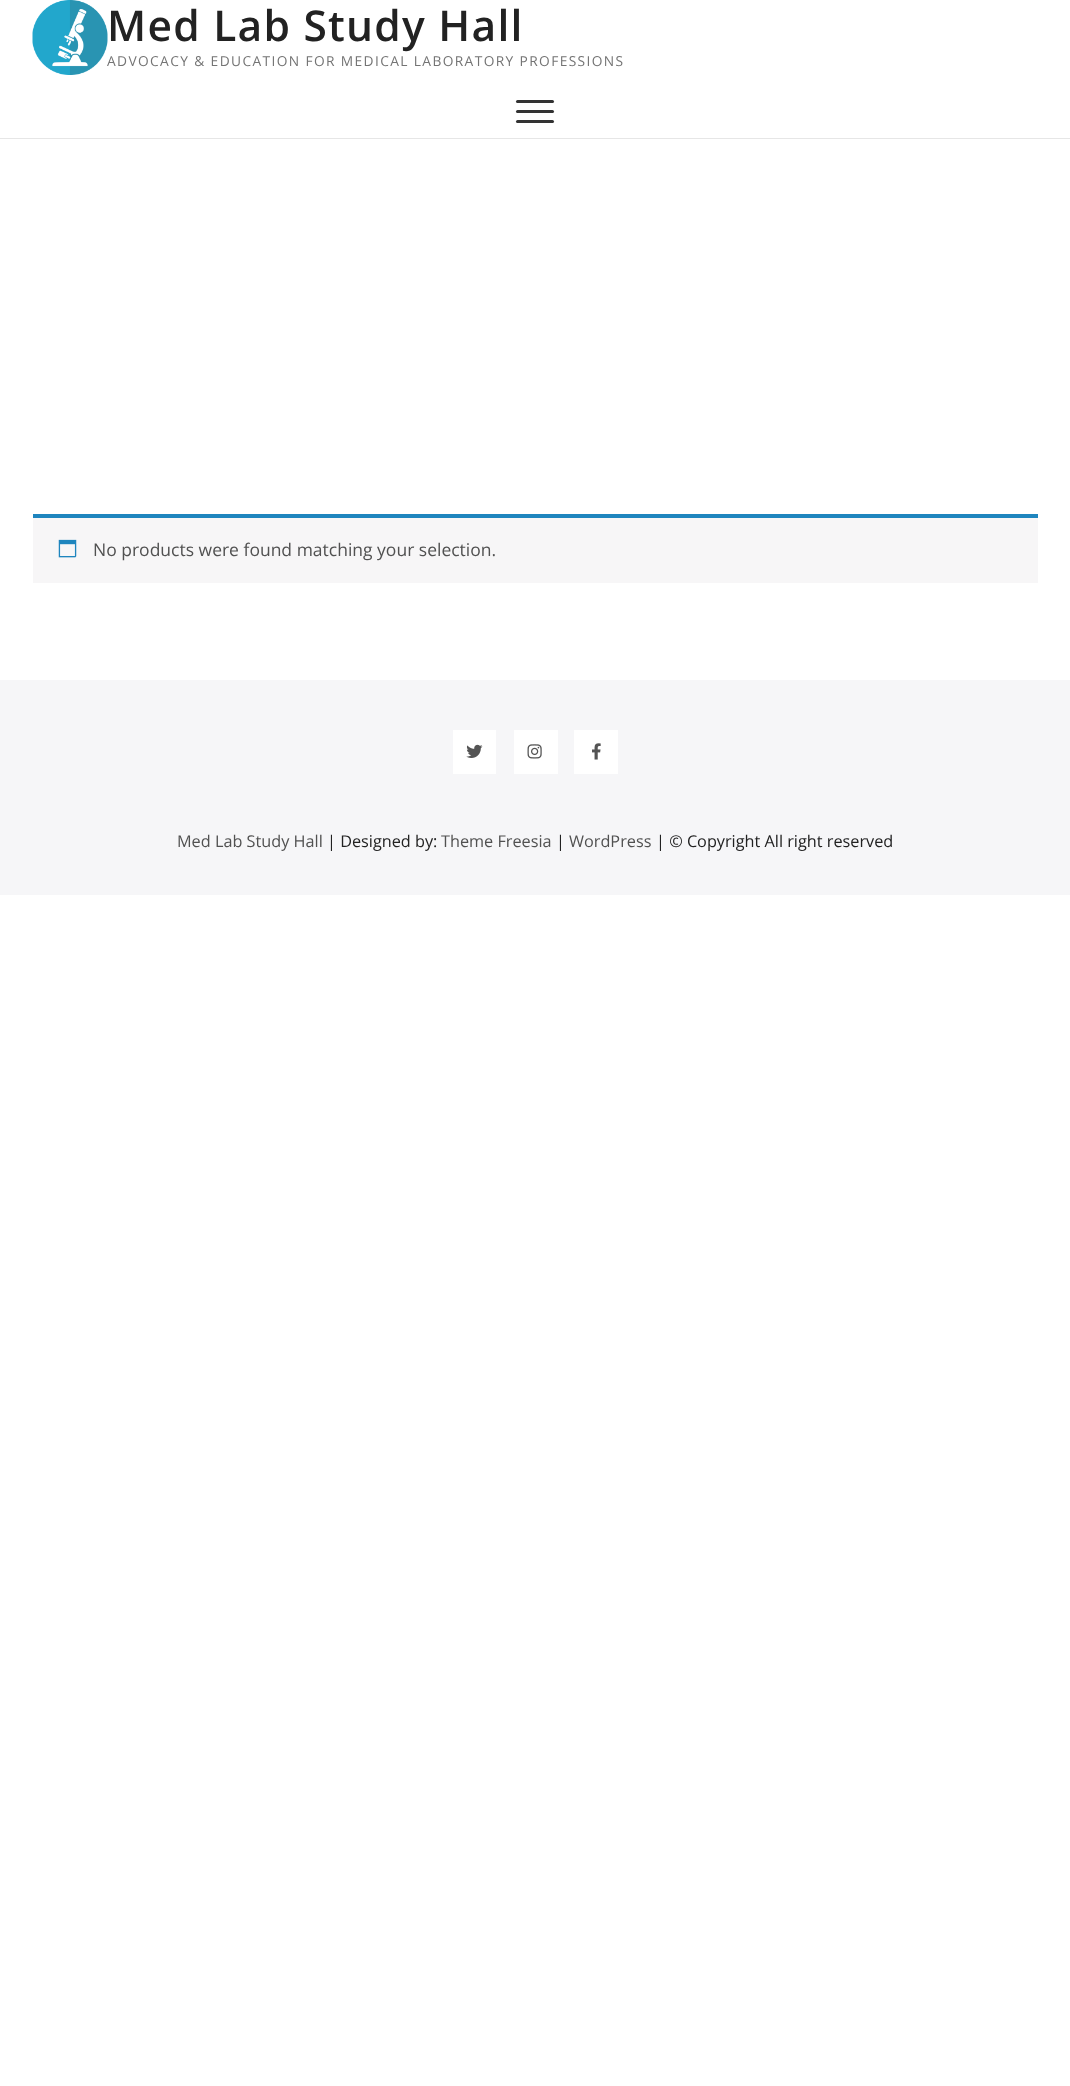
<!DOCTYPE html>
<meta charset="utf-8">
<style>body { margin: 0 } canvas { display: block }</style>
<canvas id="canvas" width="1070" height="2086"></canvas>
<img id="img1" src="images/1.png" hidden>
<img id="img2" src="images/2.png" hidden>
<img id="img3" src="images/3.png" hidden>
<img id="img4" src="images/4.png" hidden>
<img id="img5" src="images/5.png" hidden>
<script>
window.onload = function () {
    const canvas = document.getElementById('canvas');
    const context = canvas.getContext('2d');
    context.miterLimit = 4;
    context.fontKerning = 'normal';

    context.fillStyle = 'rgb(255, 255, 255)';
    context.fillRect(0, 0, 1070, 2086);
    context.fillStyle = 'rgb(230, 230, 230)';
    context.fillRect(0, 138, 1070, 1);
    context.drawImage(document.getElementById('img1'), 32, 0, 76, 75);
    context.fillStyle = 'rgb(51, 51, 51)';
    context.beginPath();
    context.roundRect(516, 110, 38, 3, 1.5);
    context.fill();
    context.beginPath();
    context.roundRect(516, 100, 38, 3, 1.5);
    context.fill();
    context.beginPath();
    context.roundRect(516, 120, 38, 3, 1.5);
    context.fill();
    context.fillStyle = 'rgb(247, 246, 247)';
    context.fillRect(33, 518, 1005, 65);
    context.fillStyle = 'rgb(30, 133, 190)';
    context.fillRect(33, 514, 1005, 4);
    context.drawImage(document.getElementById('img2'), 58, 539, 19, 19);
    context.fillStyle = 'rgb(246, 246, 248)';
    context.fillRect(0, 680, 1070, 215);
    context.fillStyle = 'rgb(255, 255, 255)';
    context.fillRect(453, 730, 43, 44);
    context.drawImage(document.getElementById('img3'), 466, 744, 17, 14);
    context.fillRect(514, 730, 44, 44);
    context.drawImage(document.getElementById('img4'), 527, 744, 15, 15);
    context.fillRect(574, 730, 44, 44);
    context.drawImage(document.getElementById('img5'), 592, 743, 9, 17);
    context.letterSpacing = '1.25px';
    context.font = '600 42.5px Open Sans';
    context.fillStyle = 'rgb(34, 34, 34)';
    context.fillText('Med Lab Study Hall', 107, 41);
    context.letterSpacing = '1.38px';
    context.font = '13.75px Open Sans';
    context.fillStyle = 'rgb(116, 116, 116)';
    context.fillText('ADVOCACY & EDUCATION FOR MEDICAL LABORATORY PROFESSIONS', 107, 66);
    context.letterSpacing = '0px';
    context.font = '17.5px Open Sans';
    context.fillStyle = 'rgb(81, 81, 81)';
    context.fillText('No products were found matching your selection.', 93, 556);
    context.font = '16.25px Open Sans';
    context.fillText('Med Lab Study Hall', 177, 847);
    context.fillStyle = 'rgb(34, 34, 34)';
    context.fillText('| Designed by:', 327, 847);
    context.fillStyle = 'rgb(81, 81, 81)';
    context.fillText('Theme Freesia', 441, 847);
    context.fillStyle = 'rgb(34, 34, 34)';
    context.fillText('|', 556, 847);
    context.fillStyle = 'rgb(81, 81, 81)';
    context.fillText('WordPress', 569, 847);
    context.fillStyle = 'rgb(34, 34, 34)';
    context.fillText('| © Copyright All right reserved', 656, 847);
};
</script>
